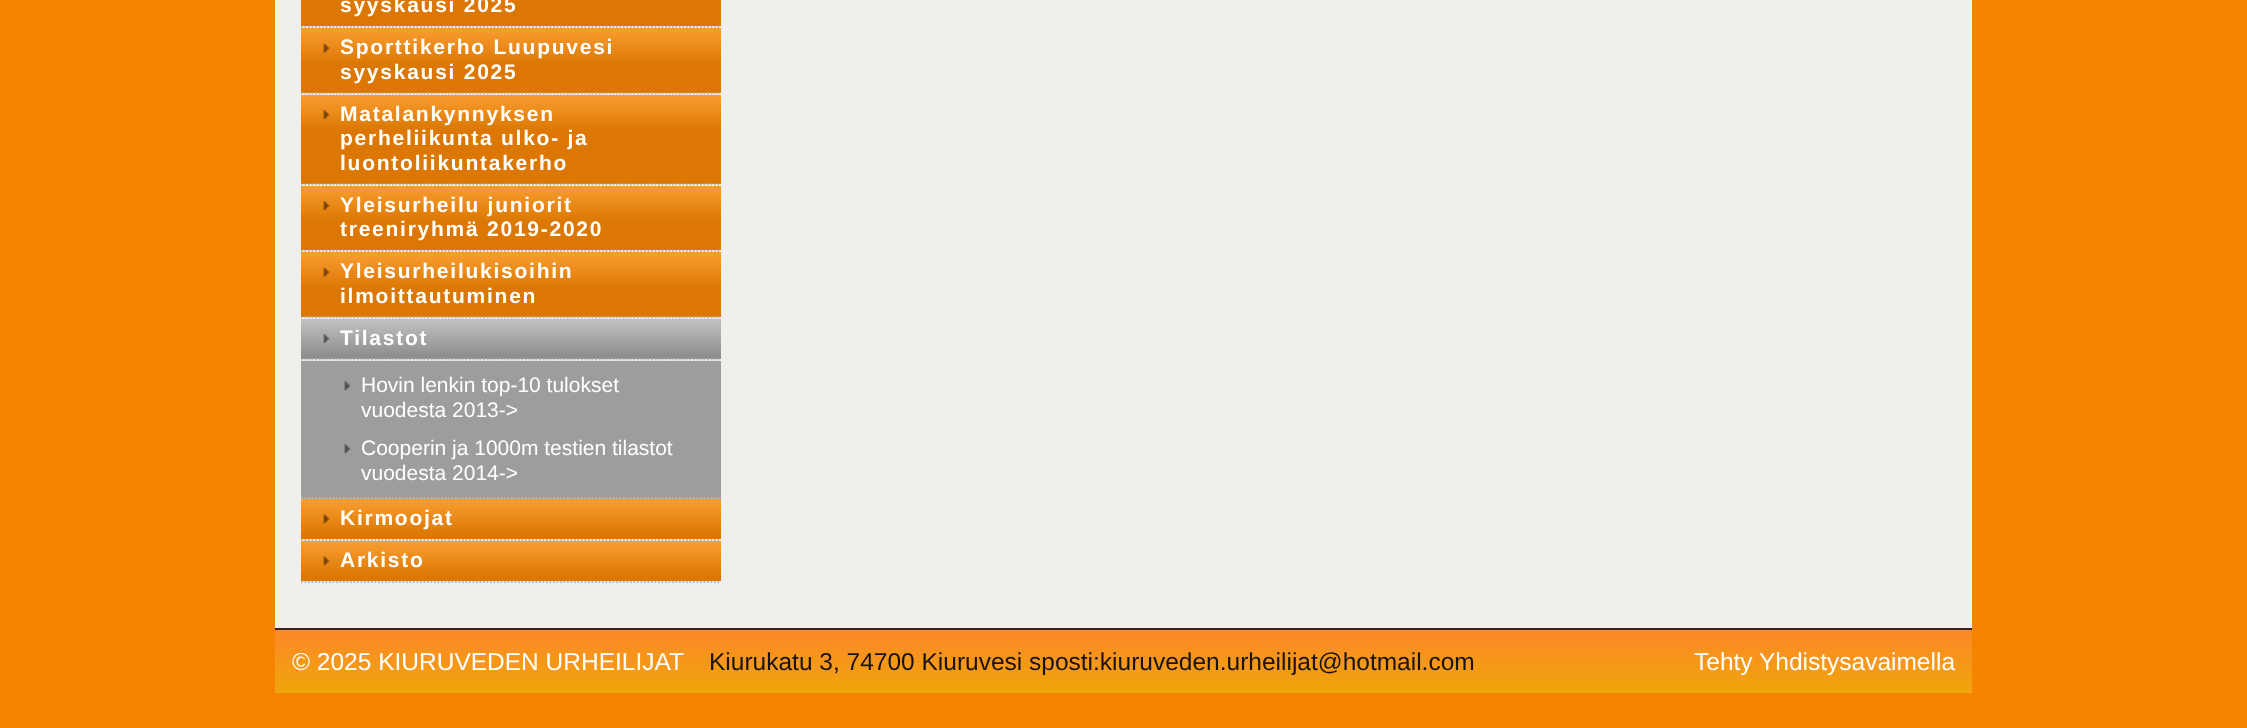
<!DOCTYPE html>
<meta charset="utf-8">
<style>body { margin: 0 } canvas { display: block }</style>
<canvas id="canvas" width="2247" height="728"></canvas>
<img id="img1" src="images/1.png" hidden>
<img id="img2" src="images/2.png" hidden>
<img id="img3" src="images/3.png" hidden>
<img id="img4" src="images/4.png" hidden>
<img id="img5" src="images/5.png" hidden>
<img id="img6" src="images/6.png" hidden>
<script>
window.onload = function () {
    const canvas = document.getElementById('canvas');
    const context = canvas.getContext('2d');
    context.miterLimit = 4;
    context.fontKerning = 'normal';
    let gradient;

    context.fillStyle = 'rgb(245, 133, 1)';
    context.fillRect(0, 0, 2247, 728);
    context.fillStyle = 'rgb(240, 239, 236)';
    context.fillRect(275, 0, 1697, 628);
    gradient = context.createLinearGradient(511, -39, 511, 26);
    gradient.addColorStop(0, 'rgb(250, 158, 50)');
    gradient.addColorStop(0.57, 'rgb(219, 119, 2)');
    gradient.addColorStop(1, 'rgb(219, 119, 2)');
    context.fillStyle = gradient;
    context.fillRect(301, 0, 420, 26);
    context.beginPath();
    context.moveTo(301, 27);
    context.lineTo(721, 27);
    context.strokeStyle = 'rgb(186, 186, 186)';
    context.lineWidth = 1.8;
    context.setLineDash([1.75, 1.75]);
    context.stroke();
    gradient = context.createLinearGradient(511, 28, 511, 93);
    gradient.addColorStop(0, 'rgb(250, 158, 50)');
    gradient.addColorStop(0.57, 'rgb(219, 119, 2)');
    gradient.addColorStop(1, 'rgb(219, 119, 2)');
    context.fillStyle = gradient;
    context.fillRect(301, 28, 420, 65);
    context.beginPath();
    context.moveTo(301, 93.5);
    context.lineTo(721, 93.5);
    context.stroke();
    context.drawImage(document.getElementById('img1'), 323, 43, 7, 10);
    gradient = context.createLinearGradient(511, 94, 511, 184);
    gradient.addColorStop(0, 'rgb(250, 158, 50)');
    gradient.addColorStop(0.41, 'rgb(219, 119, 2)');
    gradient.addColorStop(1, 'rgb(219, 119, 2)');
    context.fillStyle = gradient;
    context.fillRect(301, 95, 420, 89);
    context.beginPath();
    context.moveTo(301, 184.5);
    context.lineTo(721, 184.5);
    context.stroke();
    context.drawImage(document.getElementById('img2'), 323, 110, 7, 9);
    gradient = context.createLinearGradient(511, 185, 511, 250);
    gradient.addColorStop(0, 'rgb(250, 158, 50)');
    gradient.addColorStop(0.57, 'rgb(219, 119, 2)');
    gradient.addColorStop(1, 'rgb(219, 119, 2)');
    context.fillStyle = gradient;
    context.fillRect(301, 186, 420, 64);
    context.beginPath();
    context.moveTo(301, 251);
    context.lineTo(721, 251);
    context.stroke();
    context.drawImage(document.getElementById('img3'), 323, 201, 7, 9);
    gradient = context.createLinearGradient(511, 252, 511, 317);
    gradient.addColorStop(0, 'rgb(250, 158, 50)');
    gradient.addColorStop(0.57, 'rgb(219, 119, 2)');
    gradient.addColorStop(1, 'rgb(219, 119, 2)');
    context.fillStyle = gradient;
    context.fillRect(301, 252, 420, 65);
    context.beginPath();
    context.moveTo(301, 317.5);
    context.lineTo(721, 317.5);
    context.stroke();
    context.drawImage(document.getElementById('img1'), 323, 267, 7, 10);
    gradient = context.createLinearGradient(511, 319, 511, 359);
    gradient.addColorStop(0, 'rgb(196, 194, 192)');
    gradient.addColorStop(0.91, 'rgb(143, 143, 143)');
    gradient.addColorStop(1, 'rgb(143, 143, 143)');
    context.fillStyle = gradient;
    context.fillRect(301, 319, 420, 40);
    context.beginPath();
    context.moveTo(301, 359.5);
    context.lineTo(721, 359.5);
    context.stroke();
    context.drawImage(document.getElementById('img4'), 323, 334, 7, 9);
    context.fillStyle = 'rgb(157, 157, 157)';
    context.fillRect(301, 361, 420, 138);
    context.drawImage(document.getElementById('img5'), 344, 381, 7, 10);
    context.beginPath();
    context.moveTo(301, 498);
    context.lineTo(721, 498);
    context.stroke();
    context.drawImage(document.getElementById('img5'), 344, 444, 7, 10);
    gradient = context.createLinearGradient(511, 499, 511, 539);
    gradient.addColorStop(0, 'rgb(250, 158, 50)');
    gradient.addColorStop(0.91, 'rgb(219, 119, 2)');
    gradient.addColorStop(1, 'rgb(219, 119, 2)');
    context.fillStyle = gradient;
    context.fillRect(301, 499, 420, 40);
    context.beginPath();
    context.moveTo(301, 540);
    context.lineTo(721, 540);
    context.stroke();
    context.drawImage(document.getElementById('img6'), 323, 514, 7, 10);
    gradient = context.createLinearGradient(511, 541, 511, 581);
    gradient.addColorStop(0, 'rgb(250, 158, 50)');
    gradient.addColorStop(0.91, 'rgb(219, 119, 2)');
    gradient.addColorStop(1, 'rgb(219, 119, 2)');
    context.fillStyle = gradient;
    context.fillRect(301, 541, 420, 40);
    context.beginPath();
    context.moveTo(301, 582);
    context.lineTo(721, 582);
    context.stroke();
    context.drawImage(document.getElementById('img6'), 323, 556, 7, 10);
    gradient = context.createLinearGradient(1124, 630, 1124, 702);
    gradient.addColorStop(0, 'rgb(251, 136, 39)');
    gradient.addColorStop(1, 'rgb(239, 169, 7)');
    context.fillStyle = gradient;
    context.fillRect(275, 630, 1697, 63);
    context.fillStyle = 'rgb(61, 32, 32)';
    context.fillRect(275, 628, 1697, 2);
    context.letterSpacing = '1.75px';
    context.font = 'bold 21px Liberation Sans';
    context.fillStyle = 'rgb(255, 255, 255)';
    context.fillText('syyskausi 2025', 340, 12);
    context.fillText('Sporttikerho Luupuvesi', 340, 54);
    context.fillText('syyskausi 2025', 340, 79);
    context.fillText('Matalankynnyksen', 340, 121);
    context.fillText('perheliikunta ulko- ja', 340, 145);
    context.fillText('luontoliikuntakerho', 340, 170);
    context.fillText('Yleisurheilu juniorit', 340, 212);
    context.fillText('treeniryhmä 2019-2020', 340, 236);
    context.fillText('Yleisurheilukisoihin', 340, 278);
    context.fillText('ilmoittautuminen', 340, 303);
    context.fillText('Tilastot', 340, 345);
    context.letterSpacing = '0px';
    context.font = '21px Liberation Sans';
    context.fillText('Hovin lenkin top-10 tulokset', 361, 392);
    context.fillText('vuodesta 2013->', 361, 417);
    context.fillText('Cooperin ja 1000m testien tilastot', 361, 455);
    context.fillText('vuodesta 2014->', 361, 480);
    context.letterSpacing = '1.75px';
    context.font = 'bold 21px Liberation Sans';
    context.fillText('Kirmoojat', 340, 525);
    context.fillText('Arkisto', 340, 567);
    context.letterSpacing = '0px';
    context.font = '24.5px Liberation Sans';
    context.fillText('© 2025 KIURUVEDEN URHEILIJAT', 292, 670);
    context.fillStyle = 'rgb(26, 19, 19)';
    context.fillText('Kiurukatu 3, 74700 Kiuruvesi sposti:kiuruveden.urheilijat@hotmail.com', 709, 670);
    context.fillStyle = 'rgb(255, 255, 255)';
    context.fillText('Tehty Yhdistysavaimella', 1694, 670);
};
</script>
